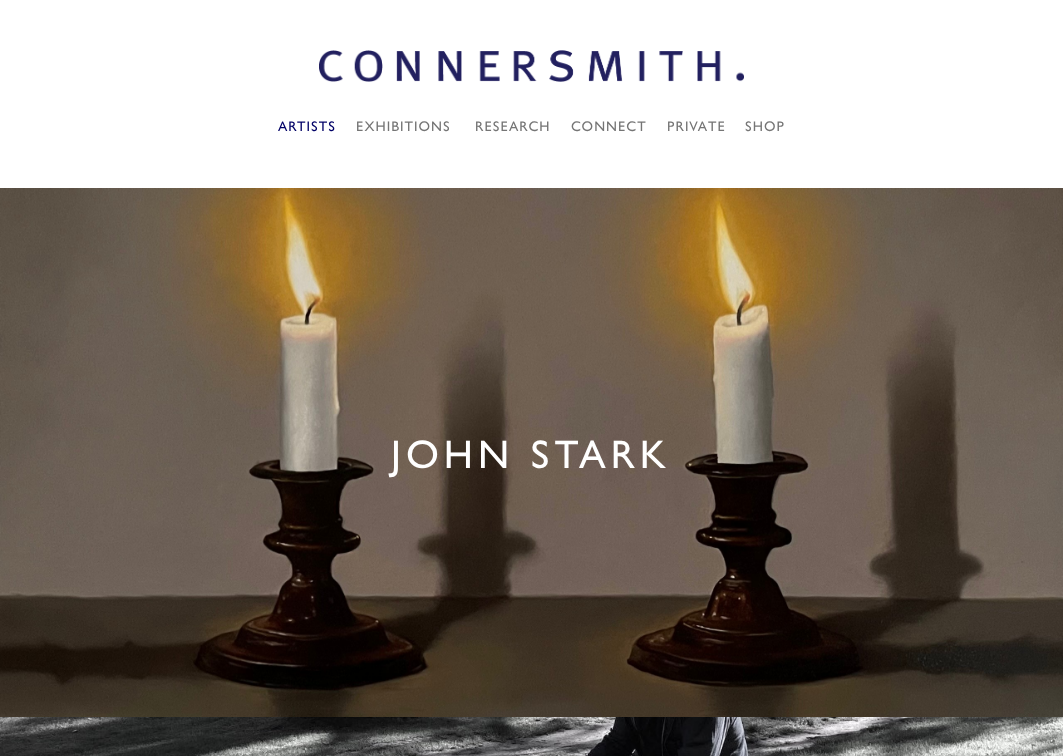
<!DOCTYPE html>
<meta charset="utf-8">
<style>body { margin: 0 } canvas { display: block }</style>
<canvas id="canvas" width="1063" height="756"></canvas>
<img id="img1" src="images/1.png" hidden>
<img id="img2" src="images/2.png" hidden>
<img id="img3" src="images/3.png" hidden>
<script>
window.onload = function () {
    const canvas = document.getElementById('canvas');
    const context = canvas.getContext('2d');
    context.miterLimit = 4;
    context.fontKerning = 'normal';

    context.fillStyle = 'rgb(255, 255, 255)';
    context.fillRect(0, 0, 1063, 756);
    context.drawImage(document.getElementById('img1'), 319, 50, 425, 32);
    context.drawImage(document.getElementById('img2'), 0, 188, 1063, 529);
    context.drawImage(document.getElementById('img3'), 0, 717, 1063, 39);
    context.letterSpacing = '1px';
    context.font = '500 14px "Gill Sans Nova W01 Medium"';
    context.fillStyle = 'rgb(0, 0, 102)';
    context.fillText('ARTISTS', 278, 131);
    context.fillStyle = 'rgb(117, 117, 117)';
    context.fillText('EXHIBITIONS', 356, 131);
    context.fillText('RESEARCH', 475, 131);
    context.fillText('CONNECT', 571, 131);
    context.fillText('PRIVATE', 667, 131);
    context.fillText('SHOP', 745, 131);
    context.letterSpacing = '5px';
    context.font = '500 40px "Gill Sans Nova W01 Medium"';
    context.fillStyle = 'rgb(255, 255, 255)';
    context.fillText('JOHN STARK', 391, 468);
};
</script>
